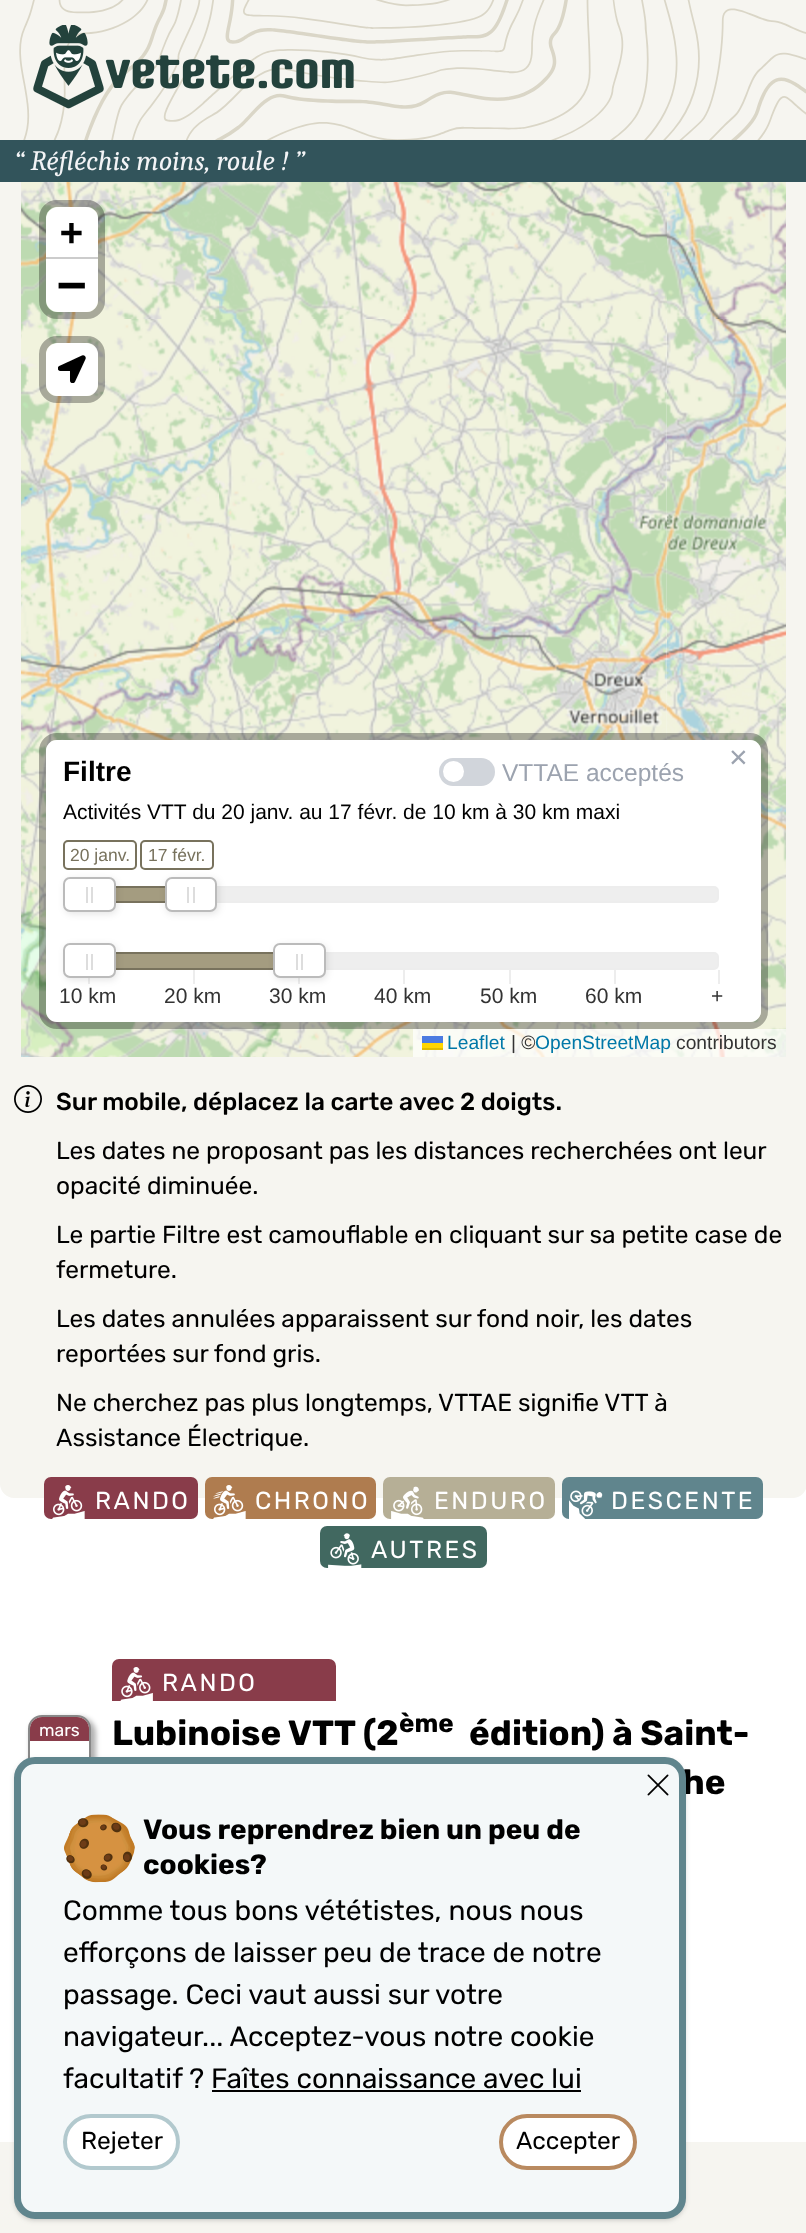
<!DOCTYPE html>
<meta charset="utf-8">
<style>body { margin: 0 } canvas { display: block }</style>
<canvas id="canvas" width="806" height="2233"></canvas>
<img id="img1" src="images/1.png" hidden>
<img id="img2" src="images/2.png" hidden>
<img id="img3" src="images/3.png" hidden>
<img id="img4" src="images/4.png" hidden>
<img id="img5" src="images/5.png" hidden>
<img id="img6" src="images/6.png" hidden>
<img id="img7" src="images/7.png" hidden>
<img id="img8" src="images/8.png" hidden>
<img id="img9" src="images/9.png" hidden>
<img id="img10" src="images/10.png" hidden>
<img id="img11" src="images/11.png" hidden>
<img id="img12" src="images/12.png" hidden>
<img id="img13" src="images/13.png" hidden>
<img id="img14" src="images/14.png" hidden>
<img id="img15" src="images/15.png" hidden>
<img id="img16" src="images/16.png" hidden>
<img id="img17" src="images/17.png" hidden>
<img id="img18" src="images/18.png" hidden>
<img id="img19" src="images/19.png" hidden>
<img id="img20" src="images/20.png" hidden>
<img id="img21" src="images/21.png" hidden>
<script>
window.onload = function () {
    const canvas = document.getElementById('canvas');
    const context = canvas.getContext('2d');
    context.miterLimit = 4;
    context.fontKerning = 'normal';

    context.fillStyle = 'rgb(255, 255, 255)';
    context.fillRect(0, 0, 806, 2233);
    context.fillStyle = 'rgb(246, 245, 240)';
    context.fillRect(0, 0, 806, 140);
    context.drawImage(document.getElementById('img1'), 19, 0, 787, 140);
    context.drawImage(document.getElementById('img2'), 33, 25, 321, 84);
    context.fillStyle = 'rgb(50, 84, 91)';
    context.fillRect(0, 140, 806, 42);
    context.fillStyle = 'rgb(246, 245, 240)';
    context.fillRect(0, 182, 806, 875);
    context.drawImage(document.getElementById('img3'), 21, 182, 198, 137);
    context.drawImage(document.getElementById('img4'), 219, 182, 448, 137);
    context.drawImage(document.getElementById('img5'), 667, 182, 119, 137);
    context.drawImage(document.getElementById('img6'), 21, 319, 198, 448);
    context.drawImage(document.getElementById('img7'), 219, 319, 448, 421);
    context.drawImage(document.getElementById('img8'), 667, 319, 119, 448);
    context.drawImage(document.getElementById('img9'), 21, 767, 198, 290);
    context.drawImage(document.getElementById('img10'), 219, 1022, 448, 35);
    context.drawImage(document.getElementById('img11'), 667, 767, 119, 290);
    context.beginPath();
    context.roundRect(42.5, 203.5, 59, 112, 14.5);
    context.strokeStyle = 'rgba(0, 0, 0, 0.3)';
    context.lineWidth = 7;
    context.stroke();
    context.fillStyle = 'rgb(255, 255, 255)';
    context.beginPath();
    context.roundRect(46, 207, 52, 50, [12, 12, 0, 0]);
    context.fill();
    context.fillStyle = 'rgb(204, 204, 204)';
    context.fillRect(46, 257, 52, 2);
    context.fillStyle = 'rgb(255, 255, 255)';
    context.beginPath();
    context.roundRect(46, 259, 52, 53, [0, 0, 12, 12]);
    context.fill();
    context.beginPath();
    context.roundRect(42.5, 339.5, 59, 60, 14.5);
    context.stroke();
    context.beginPath();
    context.roundRect(46, 343, 52, 53, 12);
    context.fill();
    context.drawImage(document.getElementById('img12'), 58, 355, 28, 28);
    context.beginPath();
    context.roundRect(42.5, 736.5, 722, 289, 14.5);
    context.stroke();
    context.beginPath();
    context.roundRect(46, 740, 715, 282, 11);
    context.fill();
    context.fillStyle = 'rgb(209, 213, 219)';
    context.beginPath();
    context.roundRect(439, 758, 56, 28, 14);
    context.fill();
    context.fillStyle = 'rgb(255, 255, 255)';
    context.beginPath();
    context.arc(453.5, 771.5, 10.5, 0, 2 * Math.PI);
    context.fill();
    context.fillStyle = 'rgb(238, 238, 238)';
    context.beginPath();
    context.roundRect(89, 887, 629, 15, 4);
    context.fill();
    context.strokeStyle = 'rgb(237, 237, 237)';
    context.lineWidth = 2;
    context.stroke();
    context.fillStyle = 'rgb(164, 156, 128)';
    context.fillRect(116, 888, 49, 13);
    context.strokeStyle = 'rgb(120, 114, 93)';
    context.strokeRect(89, 887, 99, 15);
    context.fillStyle = 'rgba(0, 0, 0, 0.1)';
    context.filter = 'blur(3.5px)';
    context.beginPath();
    context.roundRect(65, 879, 52, 35, 7);
    context.fill();
    context.filter = 'none';
    context.fillStyle = 'rgb(255, 255, 255)';
    context.beginPath();
    context.roundRect(64, 878, 51, 33, 6);
    context.fill();
    context.strokeStyle = 'rgb(187, 187, 187)';
    context.stroke();
    context.beginPath();
    context.roundRect(64, 841, 72, 28, 4);
    context.strokeStyle = 'rgb(120, 114, 93)';
    context.stroke();
    context.fillStyle = 'rgb(221, 221, 221)';
    context.fillRect(86, 887, 2, 16);
    context.fillRect(91, 887, 2, 16);
    context.fillStyle = 'rgba(0, 0, 0, 0.1)';
    context.filter = 'blur(3.5px)';
    context.beginPath();
    context.roundRect(166, 879, 53, 35, 7);
    context.fill();
    context.filter = 'none';
    context.fillStyle = 'rgb(255, 255, 255)';
    context.beginPath();
    context.roundRect(166, 878, 50, 33, 6);
    context.fill();
    context.strokeStyle = 'rgb(187, 187, 187)';
    context.stroke();
    context.beginPath();
    context.roundRect(141, 841, 72, 28, 4);
    context.strokeStyle = 'rgb(120, 114, 93)';
    context.stroke();
    context.fillStyle = 'rgb(221, 221, 221)';
    context.fillRect(187, 887, 2, 16);
    context.fillRect(193, 887, 2, 16);
    context.fillStyle = 'rgb(238, 238, 238)';
    context.beginPath();
    context.roundRect(89, 953, 629, 16, 4);
    context.fill();
    context.strokeStyle = 'rgb(237, 237, 237)';
    context.stroke();
    context.fillStyle = 'rgb(164, 156, 128)';
    context.fillRect(116, 954, 157, 14);
    context.strokeStyle = 'rgb(120, 114, 93)';
    context.strokeRect(89, 953, 208, 16);
    context.fillStyle = 'rgb(237, 237, 237)';
    context.fillRect(88, 970, 2, 14);
    context.fillStyle = 'rgba(0, 0, 0, 0.1)';
    context.filter = 'blur(3.5px)';
    context.beginPath();
    context.roundRect(65, 945, 52, 35, 7);
    context.fill();
    context.filter = 'none';
    context.fillStyle = 'rgb(255, 255, 255)';
    context.beginPath();
    context.roundRect(64, 944, 51, 33, 6);
    context.fill();
    context.strokeStyle = 'rgb(187, 187, 187)';
    context.stroke();
    context.fillStyle = 'rgb(221, 221, 221)';
    context.fillRect(86, 954, 2, 16);
    context.fillRect(91, 954, 2, 16);
    context.fillStyle = 'rgb(237, 237, 237)';
    context.fillRect(298, 970, 2, 14);
    context.fillStyle = 'rgba(0, 0, 0, 0.1)';
    context.filter = 'blur(3.5px)';
    context.beginPath();
    context.roundRect(275, 945, 52, 35, 7);
    context.fill();
    context.filter = 'none';
    context.fillStyle = 'rgb(255, 255, 255)';
    context.beginPath();
    context.roundRect(274, 944, 51, 33, 6);
    context.fill();
    context.stroke();
    context.fillStyle = 'rgb(221, 221, 221)';
    context.fillRect(296, 954, 2, 16);
    context.fillRect(301, 954, 2, 16);
    context.fillStyle = 'rgb(237, 237, 237)';
    context.fillRect(193, 970, 2, 14);
    context.fillRect(403, 970, 2, 14);
    context.fillRect(509, 970, 2, 14);
    context.fillRect(614, 970, 2, 14);
    context.fillRect(718, 970, 2, 14);
    context.fillStyle = 'rgba(255, 255, 255, 0.7)';
    context.fillRect(413, 1029, 373, 28);
    context.fillStyle = 'rgb(76, 123, 225)';
    context.fillRect(422, 1036, 21, 7);
    context.fillStyle = 'rgb(255, 213, 0)';
    context.fillRect(422, 1043, 21, 5);
    context.fillStyle = 'rgb(224, 188, 0)';
    context.fillRect(422, 1048, 21, 2);
    context.fillStyle = 'rgb(246, 245, 240)';
    context.beginPath();
    context.moveTo(0, 1057);
    context.lineTo(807, 1057);
    context.lineTo(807, 1484);
    context.bezierCurveTo(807, 1491.5, 800.5, 1498, 793, 1498);
    context.lineTo(14, 1498);
    context.bezierCurveTo(6.5, 1498, 0, 1491.5, 0, 1484);
    context.closePath();
    context.fill();
    context.drawImage(document.getElementById('img13'), 14, 1085, 28, 28);
    context.fillStyle = 'rgb(137, 60, 74)';
    context.beginPath();
    context.roundRect(44, 1477, 154, 42, 7);
    context.fill();
    context.drawImage(document.getElementById('img14'), 52, 1485, 33, 34);
    context.fillStyle = 'rgb(175, 124, 79)';
    context.beginPath();
    context.roundRect(205, 1477, 171, 42, 7);
    context.fill();
    context.drawImage(document.getElementById('img15'), 213, 1485, 33, 34);
    context.fillStyle = 'rgb(182, 175, 150)';
    context.beginPath();
    context.roundRect(383, 1477, 172, 42, 7);
    context.fill();
    context.drawImage(document.getElementById('img16'), 391, 1486, 33, 33);
    context.fillStyle = 'rgb(96, 133, 141)';
    context.beginPath();
    context.roundRect(562, 1477, 201, 42, 7);
    context.fill();
    context.drawImage(document.getElementById('img17'), 569, 1490, 34, 29);
    context.fillStyle = 'rgb(65, 104, 96)';
    context.beginPath();
    context.roundRect(320, 1526, 167, 42, 7);
    context.fill();
    context.drawImage(document.getElementById('img18'), 328, 1533, 34, 35);
    context.fillStyle = 'rgba(0, 0, 0, 0.3)';
    context.filter = 'blur(2.5px)';
    context.beginPath();
    context.roundRect(30, 1717, 66, 66, 16);
    context.fill();
    context.filter = 'none';
    context.fillStyle = 'rgb(255, 255, 255)';
    context.beginPath();
    context.roundRect(29, 1716, 61, 61, 13);
    context.fill();
    context.strokeStyle = 'rgb(136, 136, 136)';
    context.stroke();
    context.fillStyle = 'rgb(137, 60, 74)';
    context.beginPath();
    context.roundRect(30, 1717, 59, 24, [12, 12, 0, 0]);
    context.fill();
    context.beginPath();
    context.roundRect(112, 1659, 224, 42, [7, 7, 0, 0]);
    context.fill();
    context.drawImage(document.getElementById('img19'), 120, 1667, 33, 34);
    context.fillStyle = 'rgb(246, 245, 240)';
    context.fillRect(0, 2142, 806, 91);
    context.fillStyle = 'rgba(0, 0, 0, 0.1)';
    context.filter = 'blur(2px)';
    context.beginPath();
    context.roundRect(16, 1761, 668, 458, 19);
    context.fill();
    context.filter = 'none';
    context.filter = 'blur(2.5px)';
    context.beginPath();
    context.roundRect(14, 1759, 672, 462, 21);
    context.fill();
    context.filter = 'none';
    context.font = 'italic 28px Caladea';
    context.fillStyle = 'rgb(243, 244, 246)';
    context.fillText('“ Réfléchis moins, roule ! ”', 14, 170);
    context.font = 'bold 38px DejaVu Sans Mono';
    context.fillStyle = 'rgb(0, 0, 0)';
    context.fillText('+', 60, 245);
    context.font = 'bold 49px DejaVu Sans Mono';
    context.fillText('−', 57, 301);
    context.font = '32px Liberation Sans';
    context.fillStyle = 'rgb(156, 163, 175)';
    context.fillText('×', 729, 768);
    context.font = 'bold 28px Liberation Sans';
    context.fillStyle = 'rgb(0, 0, 0)';
    context.fillText('Filtre', 63, 781);
    context.font = '24.5px Liberation Sans';
    context.fillStyle = 'rgb(156, 163, 175)';
    context.fillText('VTTAE acceptés', 502, 781);
    context.font = '21px Liberation Sans';
    context.fillStyle = 'rgb(0, 0, 0)';
    context.fillText('Activités VTT du 20 janv. au 17 févr. de 10 km à 30 km maxi', 63, 819);
    context.font = '17.5px Liberation Sans';
    context.fillStyle = 'rgb(120, 114, 93)';
    context.fillText('20 janv.', 70, 861);
    context.fillText('17 févr.', 148, 861);
    context.font = '21px Liberation Sans';
    context.fillStyle = 'rgb(51, 51, 51)';
    context.fillText('10 km', 59, 1003);
    context.fillText('20 km', 164, 1003);
    context.fillText('30 km', 269, 1003);
    context.fillText('40 km', 374, 1003);
    context.fillText('50 km', 480, 1003);
    context.fillText('60 km', 585, 1003);
    context.fillText('+', 711, 1003);
    context.font = '19.25px Liberation Sans';
    context.fillStyle = 'rgb(0, 120, 168)';
    context.fillText('Leaflet', 447, 1049);
    context.fillStyle = 'rgb(51, 51, 51)';
    context.fillText('| ©', 511, 1049);
    context.fillStyle = 'rgb(0, 120, 168)';
    context.fillText('OpenStreetMap', 535, 1049);
    context.fillStyle = 'rgb(51, 51, 51)';
    context.fillText('contributors', 676, 1049);
    context.font = '500 24.5px Rubik';
    context.fillStyle = 'rgb(0, 0, 0)';
    context.fillText('Sur mobile, déplacez la carte avec 2 doigts.', 56, 1110);
    context.font = '24.5px Rubik';
    context.fillText('Les dates ne proposant pas les distances recherchées ont leur', 56, 1159);
    context.fillText('opacité diminuée.', 56, 1194);
    context.fillText('Le partie Filtre est camouflable en cliquant sur sa petite case de', 56, 1243);
    context.fillText('fermeture.', 56, 1278);
    context.fillText('Les dates annulées apparaissent sur fond noir, les dates', 56, 1327);
    context.fillText('reportées sur fond gris.', 56, 1362);
    context.fillText('Ne cherchez pas plus longtemps, VTTAE signifie VTT à', 56, 1411);
    context.fillText('Assistance Électrique.', 56, 1446);
    context.letterSpacing = '2.5px';
    context.fillStyle = 'rgb(255, 255, 255)';
    context.fillText('RANDO', 95, 1509);
    context.fillText('CHRONO', 255, 1509);
    context.fillText('ENDURO', 434, 1509);
    context.fillText('DESCENTE', 611, 1509);
    context.fillText('AUTRES', 371, 1558);
    context.letterSpacing = '0px';
    context.font = '17.5px Rubik';
    context.fillText('mars', 39, 1736);
    context.letterSpacing = '2.5px';
    context.font = '24.5px Rubik';
    context.fillText('RANDO', 162, 1691);
    context.letterSpacing = '0px';
    context.font = 'bold 35px Rubik';
    context.fillStyle = 'rgb(0, 0, 0)';
    context.fillText('Lubinoise VTT (2', 112, 1745);
    context.font = 'bold 26px Rubik';
    context.fillText('ème', 399, 1732);
    context.font = 'bold 35px Rubik';
    context.fillText('édition) à Saint-', 469, 1745);
    context.fillText('he', 682, 1794);
    context.fillStyle = 'rgb(244, 248, 249)';
    context.beginPath();
    context.roundRect(17.5, 1760.5, 665, 455, 17.5);
    context.fill();
    context.strokeStyle = 'rgb(96, 133, 141)';
    context.lineWidth = 7;
    context.stroke();
    context.drawImage(document.getElementById('img20'), 647, 1774, 22, 22);
    context.drawImage(document.getElementById('img21'), 64, 1814, 71, 69);
    context.font = 'bold 28px Rubik';
    context.fillStyle = 'rgb(0, 0, 0)';
    context.fillText('Vous reprendrez bien un peu de', 143, 1839);
    context.fillText('cookies?', 143, 1874);
    context.font = '28px Rubik';
    context.fillText('Comme tous bons vététistes, nous nous', 63, 1920);
    context.fillText('efforçons de laisser peu de trace de notre', 63, 1962);
    context.fillText('passage. Ceci vaut aussi sur votre', 63, 2004);
    context.fillText('navigateur... Acceptez-vous notre cookie', 63, 2046);
    context.fillText('facultatif ? Faîtes connaissance avec lui', 63, 2088);
    context.fillRect(212, 2090, 369, 2);
    context.fillStyle = 'rgb(255, 255, 255)';
    context.beginPath();
    context.roundRect(65, 2116, 113, 52, 26);
    context.fill();
    context.strokeStyle = 'rgb(178, 201, 206)';
    context.lineWidth = 4;
    context.stroke();
    context.font = '24.5px Rubik';
    context.fillStyle = 'rgb(0, 0, 0)';
    context.fillText('Rejeter', 81, 2149);
    context.fillStyle = 'rgb(255, 255, 255)';
    context.beginPath();
    context.roundRect(501, 2116, 134, 52, 26);
    context.fill();
    context.strokeStyle = 'rgb(185, 138, 96)';
    context.stroke();
    context.fillStyle = 'rgb(0, 0, 0)';
    context.fillText('Accepter', 516, 2149);
};
</script>
